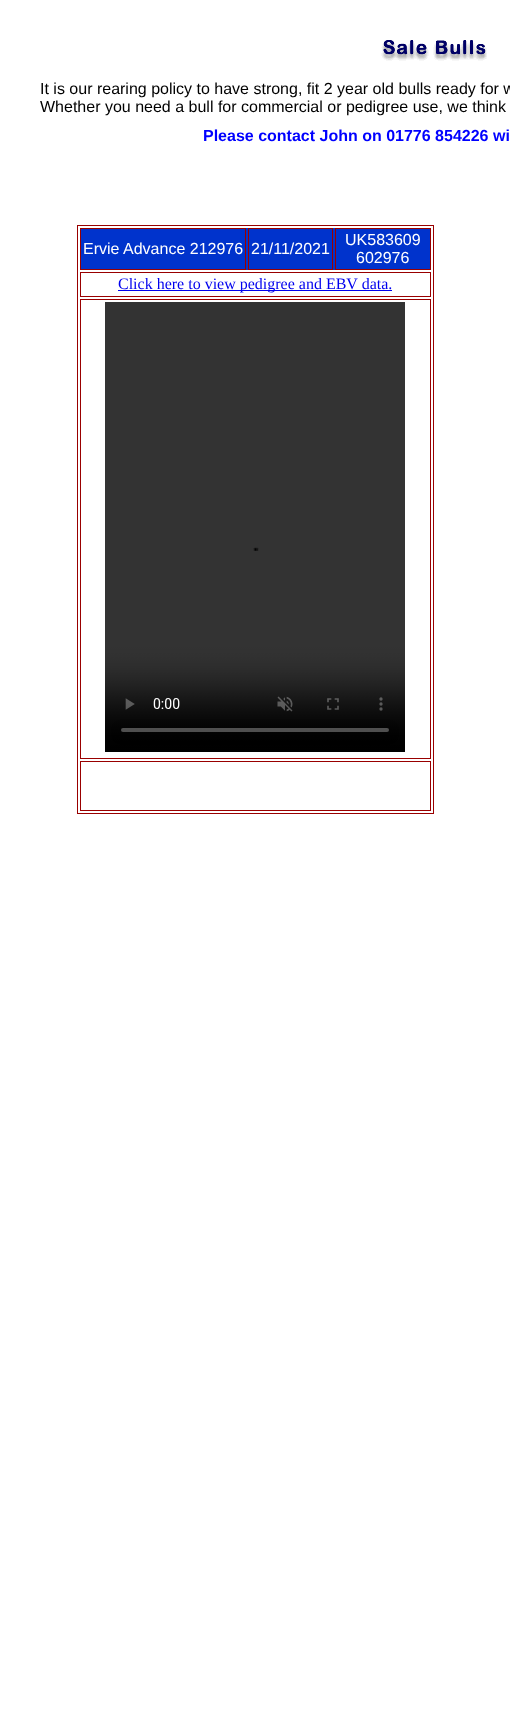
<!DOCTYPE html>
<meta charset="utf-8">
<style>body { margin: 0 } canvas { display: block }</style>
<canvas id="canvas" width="510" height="1736"></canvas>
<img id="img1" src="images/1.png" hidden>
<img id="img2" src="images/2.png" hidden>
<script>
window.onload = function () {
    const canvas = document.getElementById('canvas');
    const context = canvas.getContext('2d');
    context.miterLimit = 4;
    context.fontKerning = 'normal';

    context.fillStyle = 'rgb(255, 255, 255)';
    context.fillRect(0, 0, 510, 1736);
    context.drawImage(document.getElementById('img1'), 381, 40, 106, 21);
    context.strokeStyle = 'rgb(153, 0, 0)';
    context.strokeRect(77.5, 225.5, 356, 588);
    context.fillStyle = 'rgb(0, 51, 204)';
    context.fillRect(81, 228, 349, 42);
    context.strokeRect(80.5, 228.5, 165, 41);
    context.strokeRect(248.5, 228.5, 84, 41);
    context.strokeRect(335.5, 228.5, 95, 41);
    context.strokeRect(80.5, 272.5, 350, 24);
    context.fillStyle = 'rgb(0, 0, 238)';
    context.fillRect(118, 290, 274, 1);
    context.strokeRect(80.5, 299.5, 350, 459);
    context.drawImage(document.getElementById('img2'), 105, 302, 300, 450);
    context.strokeRect(80.5, 761.5, 350, 49);
    context.font = '16px Liberation Sans';
    context.fillStyle = 'rgb(0, 0, 0)';
    context.fillText('It is our rearing policy to have strong, fit 2 year old bulls ready for w', 40, 94);
    context.fillText('Whether you need a bull for commercial or pedigree use, we think', 40, 112);
    context.font = 'bold 16px Liberation Sans';
    context.fillStyle = 'rgb(0, 0, 255)';
    context.fillText('Please contact John on 01776 854226 wi', 203, 141);
    context.font = '16px Liberation Sans';
    context.fillStyle = 'rgb(255, 255, 255)';
    context.fillText('Ervie Advance 212976', 83, 254);
    context.fillText('21/11/2021', 251, 254);
    context.fillText('UK583609', 345, 245);
    context.fillText('602976', 356, 263);
    context.font = '16px Liberation Serif';
    context.fillStyle = 'rgb(0, 0, 238)';
    context.fillText('Click here to view pedigree and EBV data.', 118, 289);
};
</script>
